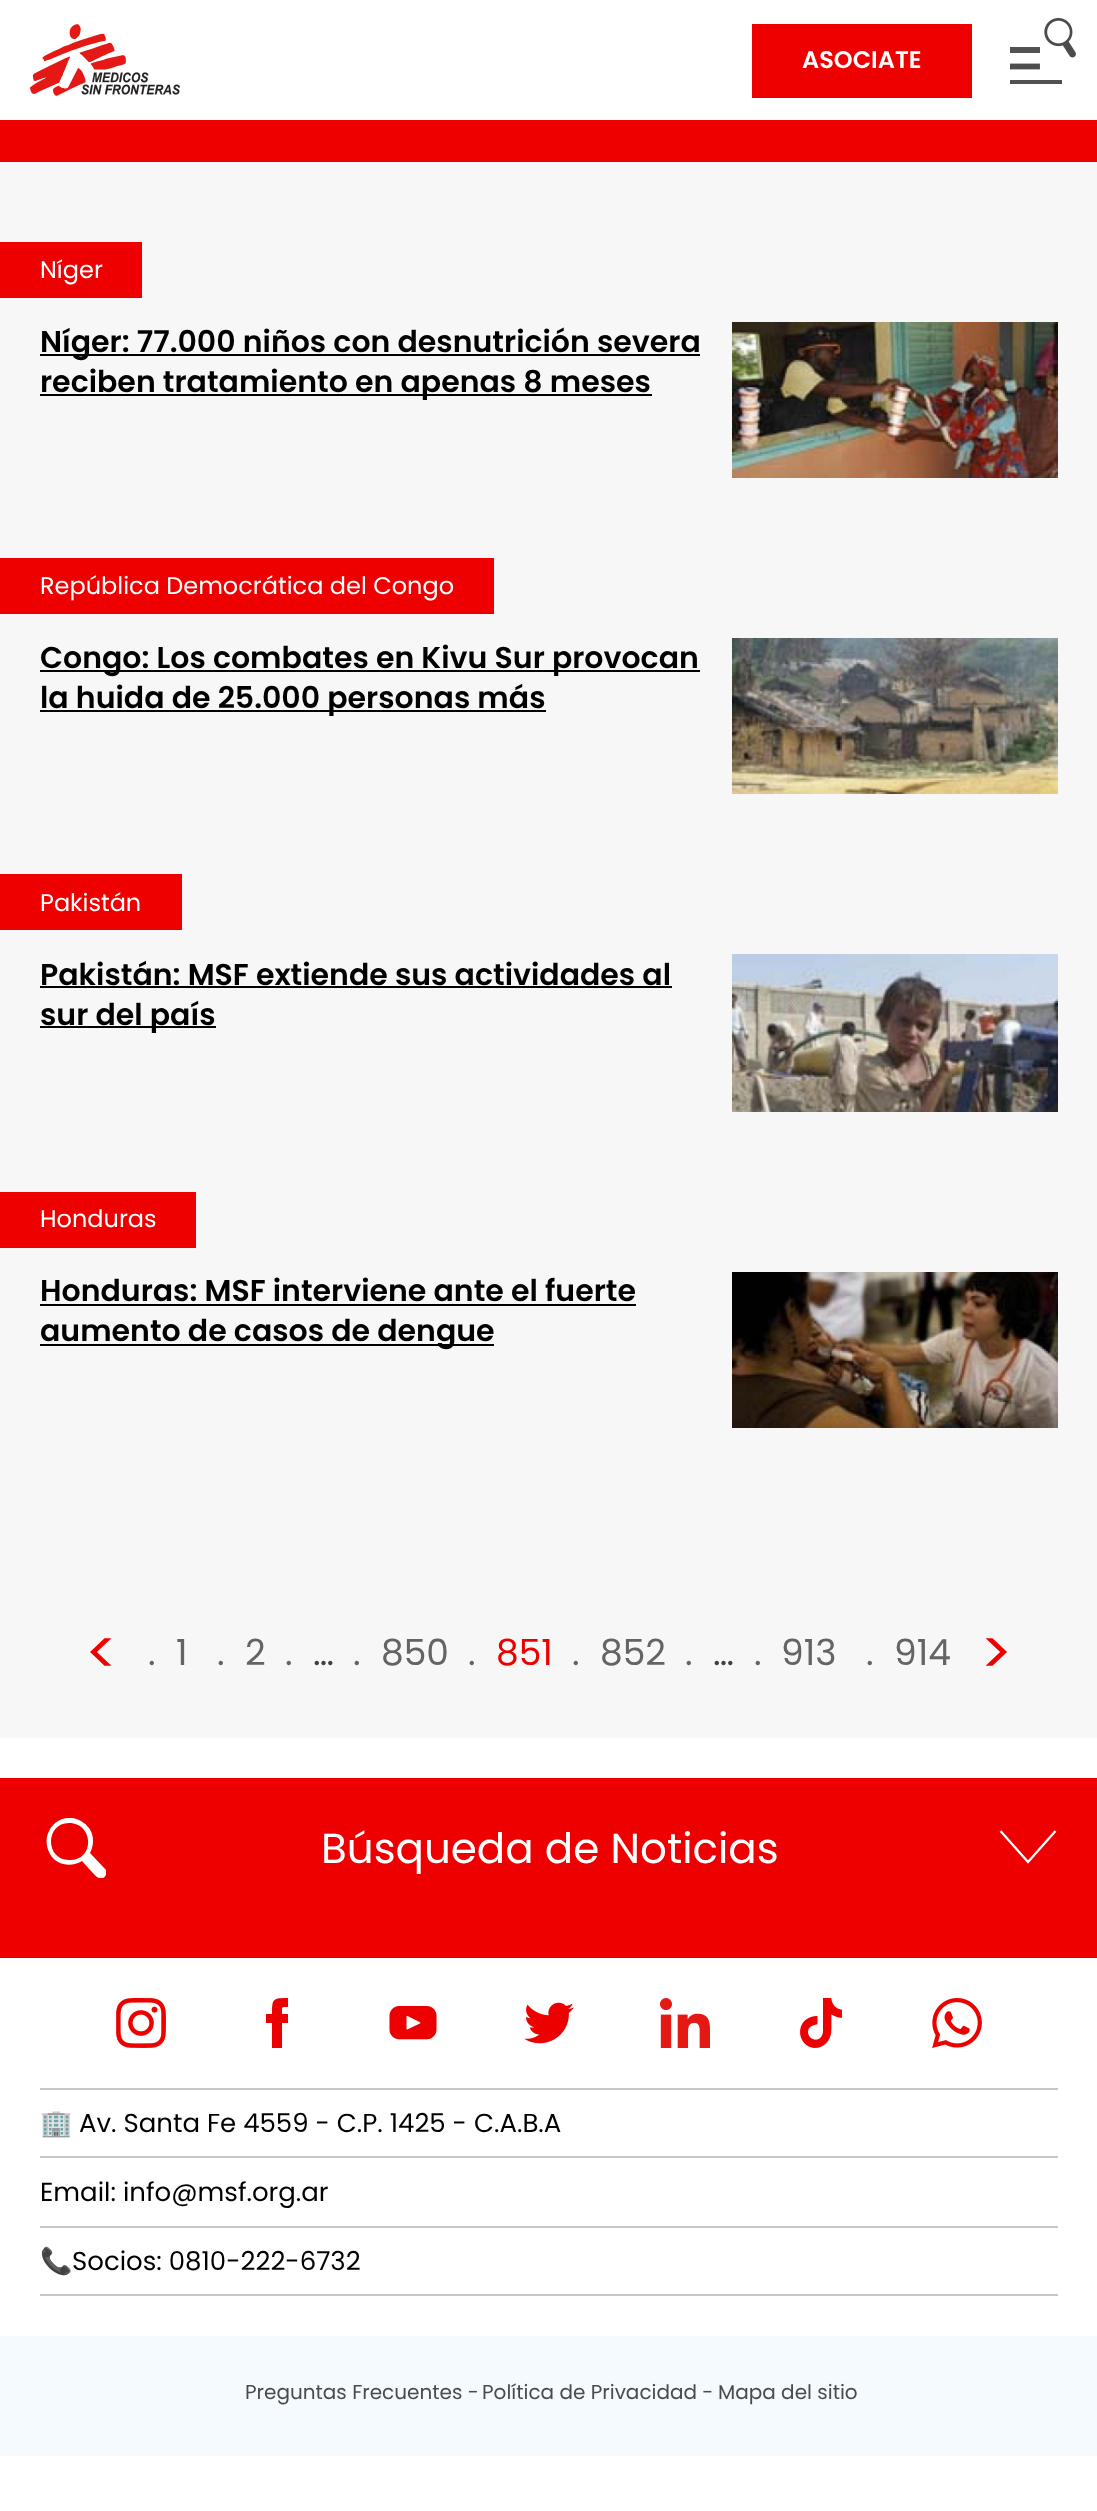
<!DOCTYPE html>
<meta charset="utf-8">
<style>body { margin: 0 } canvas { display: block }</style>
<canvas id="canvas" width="1097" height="2511"></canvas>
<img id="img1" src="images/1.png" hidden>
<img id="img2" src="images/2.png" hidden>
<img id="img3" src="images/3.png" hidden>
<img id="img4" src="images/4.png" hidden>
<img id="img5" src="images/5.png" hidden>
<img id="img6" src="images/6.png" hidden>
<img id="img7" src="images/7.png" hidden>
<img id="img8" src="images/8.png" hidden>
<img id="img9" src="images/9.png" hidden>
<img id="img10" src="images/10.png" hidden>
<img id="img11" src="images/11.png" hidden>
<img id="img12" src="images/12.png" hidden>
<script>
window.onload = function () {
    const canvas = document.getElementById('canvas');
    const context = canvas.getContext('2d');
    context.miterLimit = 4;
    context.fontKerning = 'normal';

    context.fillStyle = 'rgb(255, 255, 255)';
    context.fillRect(0, 0, 1097, 2511);
    context.drawImage(document.getElementById('img1'), 30, 24, 150, 72);
    context.fillStyle = 'rgb(238, 0, 0)';
    context.fillRect(752, 24, 220, 74);
    context.drawImage(document.getElementById('img2'), 1010, 18, 66, 66);
    context.fillRect(0, 120, 1097, 42);
    context.fillStyle = 'rgb(247, 247, 247)';
    context.fillRect(0, 162, 1097, 1576);
    context.fillStyle = 'rgb(238, 0, 0)';
    context.fillRect(0, 242, 142, 56);
    context.fillStyle = 'rgb(0, 0, 0)';
    context.fillRect(40, 354, 660, 2);
    context.fillRect(40, 394, 612, 2);
    context.drawImage(document.getElementById('img3'), 732, 322, 326, 156);
    context.fillStyle = 'rgb(238, 0, 0)';
    context.fillRect(0, 558, 494, 56);
    context.fillStyle = 'rgb(0, 0, 0)';
    context.fillRect(40, 670, 660, 2);
    context.fillRect(40, 710, 506, 2);
    context.drawImage(document.getElementById('img4'), 732, 638, 326, 156);
    context.fillStyle = 'rgb(238, 0, 0)';
    context.fillRect(0, 874, 182, 56);
    context.fillStyle = 'rgb(0, 0, 0)';
    context.fillRect(40, 986, 632, 2);
    context.fillRect(40, 1026, 176, 2);
    context.drawImage(document.getElementById('img5'), 732, 954, 326, 158);
    context.fillStyle = 'rgb(238, 0, 0)';
    context.fillRect(0, 1192, 196, 56);
    context.fillStyle = 'rgb(0, 0, 0)';
    context.fillRect(40, 1304, 596, 2);
    context.fillRect(40, 1344, 454, 2);
    context.drawImage(document.getElementById('img6'), 732, 1272, 326, 156);
    context.fillStyle = 'rgb(238, 0, 0)';
    context.fillRect(0, 1778, 1097, 180);
    context.save();
    context.beginPath();
    context.rect(46, 1818, 60, 60);
    context.clip();
    context.fillStyle = 'rgb(255, 255, 255)';
    context.beginPath();
    context.moveTo(90, 1853);
    context.lineTo(106, 1870);
    context.bezierCurveTo(107, 1872, 107, 1874, 106, 1875);
    context.bezierCurveTo(101, 1884, 94, 1874, 91, 1871);
    context.lineTo(82, 1861);
    context.bezierCurveTo(71, 1868, 56, 1865, 50, 1854);
    context.bezierCurveTo(38, 1833, 60, 1809, 81, 1821);
    context.bezierCurveTo(86, 1824, 90, 1828, 92, 1834);
    context.bezierCurveTo(94, 1840, 93, 1847, 90, 1853);
    context.closePath();
    context.moveTo(69, 1823);
    context.bezierCurveTo(45, 1823, 45, 1860, 69, 1860);
    context.bezierCurveTo(95, 1861, 94, 1823, 69, 1823);
    context.closePath();
    context.fill();
    context.restore();
    context.beginPath();
    context.moveTo(1055.5, 1831);
    context.lineTo(1028, 1862);
    context.lineTo(1000.5, 1831);
    context.strokeStyle = 'rgb(255, 255, 255)';
    context.lineWidth = 2.3;
    context.stroke();
    context.drawImage(document.getElementById('img7'), 116, 1998, 50, 50);
    context.save();
    context.beginPath();
    context.rect(266, 1998, 22, 50);
    context.clip();
    context.fillStyle = 'rgb(237, 0, 0)';
    context.beginPath();
    context.moveTo(272, 2048);
    context.lineTo(282, 2048);
    context.lineTo(282, 2023);
    context.lineTo(289, 2023);
    context.lineTo(289, 2014);
    context.lineTo(282, 2014);
    context.bezierCurveTo(282, 2006, 281, 2007, 289, 2007);
    context.lineTo(289, 1998);
    context.bezierCurveTo(273, 1998, 272, 1998, 272, 2014);
    context.lineTo(266, 2014);
    context.lineTo(266, 2023);
    context.lineTo(272, 2023);
    context.closePath();
    context.fill();
    context.restore();
    context.drawImage(document.getElementById('img8'), 389, 2006, 48, 34);
    context.drawImage(document.getElementById('img9'), 524, 2002, 50, 42);
    context.drawImage(document.getElementById('img10'), 660, 1998, 50, 50);
    context.drawImage(document.getElementById('img11'), 800, 1998, 42, 50);
    context.drawImage(document.getElementById('img12'), 932, 1998, 50, 50);
    context.fillStyle = 'rgb(200, 200, 200)';
    context.fillRect(40, 2088, 1018, 2);
    context.fillRect(40, 2156, 1018, 2);
    context.fillRect(40, 2226, 1018, 2);
    context.fillRect(40, 2294, 1018, 2);
    context.fillStyle = 'rgb(245, 250, 255)';
    context.fillRect(0, 2336, 1097, 120);
    context.font = '600 24px Poppins';
    context.fillStyle = 'rgb(255, 255, 255)';
    context.fillText('ASOCIATE', 802, 68);
    context.font = '24px Poppins';
    context.fillText('Níger', 40, 278);
    context.font = '600 30px Poppins';
    context.fillStyle = 'rgb(0, 0, 0)';
    context.fillText('Níger: 77.000 niños con desnutrición severa', 40, 352);
    context.fillText('reciben tratamiento en apenas 8 meses', 40, 392);
    context.font = '24px Poppins';
    context.fillStyle = 'rgb(255, 255, 255)';
    context.fillText('República Democrática del Congo', 40, 594);
    context.font = '600 30px Poppins';
    context.fillStyle = 'rgb(0, 0, 0)';
    context.fillText('Congo: Los combates en Kivu Sur provocan', 40, 668);
    context.fillText('la huida de 25.000 personas más', 40, 708);
    context.font = '24px Poppins';
    context.fillStyle = 'rgb(255, 255, 255)';
    context.fillText('Pakistán', 40, 911);
    context.font = '600 30px Poppins';
    context.fillStyle = 'rgb(0, 0, 0)';
    context.fillText('Pakistán: MSF extiende sus actividades al', 40, 985);
    context.fillText('sur del país', 40, 1025);
    context.font = '24px Poppins';
    context.fillStyle = 'rgb(255, 255, 255)';
    context.fillText('Honduras', 40, 1227);
    context.font = '600 30px Poppins';
    context.fillStyle = 'rgb(0, 0, 0)';
    context.fillText('Honduras: MSF interviene ante el fuerte', 40, 1301);
    context.fillText('aumento de casos de dengue', 40, 1341);
    context.font = '60px Poppins';
    context.fillStyle = 'rgb(238, 0, 0)';
    context.fillText('<', 85, 1674);
    context.font = '36px Poppins';
    context.fillStyle = 'rgb(100, 100, 100)';
    context.fillText('.', 148, 1665);
    context.fillText('1', 176, 1665);
    context.fillText('.', 217, 1665);
    context.fillText('2', 245, 1665);
    context.fillText('.', 285, 1665);
    context.fillStyle = 'rgb(64, 64, 64)';
    context.fillText('…', 313, 1665);
    context.fillStyle = 'rgb(100, 100, 100)';
    context.fillText('.', 353, 1665);
    context.fillText('850', 381, 1665);
    context.fillText('.', 468, 1665);
    context.fillStyle = 'rgb(238, 0, 0)';
    context.fillText('851', 496, 1665);
    context.fillStyle = 'rgb(100, 100, 100)';
    context.fillText('.', 572, 1665);
    context.fillText('852', 600, 1665);
    context.fillText('.', 685, 1665);
    context.fillStyle = 'rgb(64, 64, 64)';
    context.fillText('…', 713, 1665);
    context.fillStyle = 'rgb(100, 100, 100)';
    context.fillText('.', 754, 1665);
    context.fillText('913', 781, 1665);
    context.fillText('.', 866, 1665);
    context.fillText('914', 894, 1665);
    context.font = '60px Poppins';
    context.fillStyle = 'rgb(238, 0, 0)';
    context.fillText('>', 980, 1674);
    context.font = '42px Poppins';
    context.fillStyle = 'rgb(255, 255, 255)';
    context.fillText('Búsqueda de Noticias', 321, 1863);
    context.font = '26px Noto Color Emoji';
    context.fillStyle = 'rgb(0, 0, 0)';
    context.fillText('🏢', 40, 2132);
    context.font = '26px Poppins';
    context.fillText('Av. Santa Fe 4559 - C.P. 1425 - C.A.B.A', 79, 2132);
    context.fillText('Email: info@msf.org.ar', 40, 2201);
    context.font = '26px Noto Color Emoji';
    context.fillText('📞', 40, 2270);
    context.font = '26px Poppins';
    context.fillText('Socios: 0810-222-6732', 72, 2270);
    context.font = '20px Poppins';
    context.fillStyle = 'rgb(75, 75, 75)';
    context.fillText('Preguntas Frecuentes -', 245, 2399);
    context.fillText('Política de Privacidad -', 482, 2399);
    context.fillText('Mapa del sitio', 718, 2399);
};
</script>
